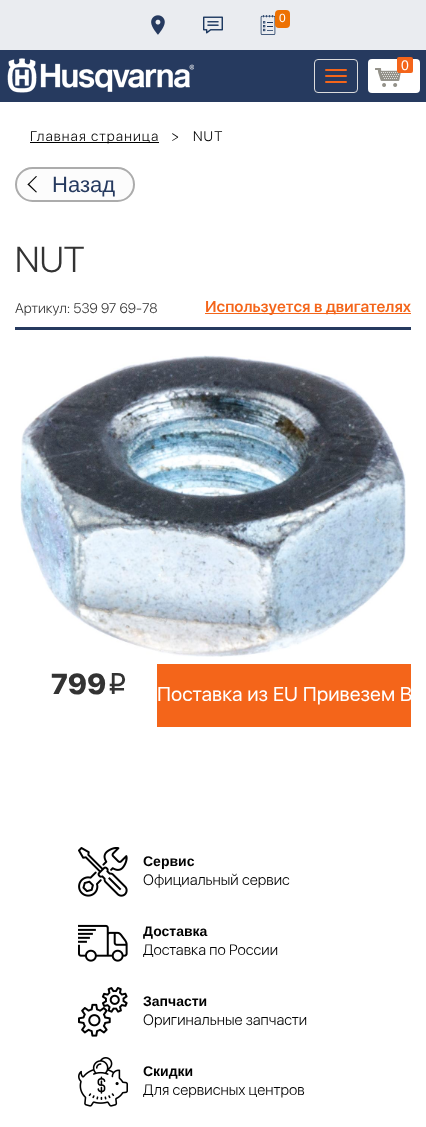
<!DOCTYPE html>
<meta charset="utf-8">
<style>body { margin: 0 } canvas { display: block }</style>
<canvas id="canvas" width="426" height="1127"></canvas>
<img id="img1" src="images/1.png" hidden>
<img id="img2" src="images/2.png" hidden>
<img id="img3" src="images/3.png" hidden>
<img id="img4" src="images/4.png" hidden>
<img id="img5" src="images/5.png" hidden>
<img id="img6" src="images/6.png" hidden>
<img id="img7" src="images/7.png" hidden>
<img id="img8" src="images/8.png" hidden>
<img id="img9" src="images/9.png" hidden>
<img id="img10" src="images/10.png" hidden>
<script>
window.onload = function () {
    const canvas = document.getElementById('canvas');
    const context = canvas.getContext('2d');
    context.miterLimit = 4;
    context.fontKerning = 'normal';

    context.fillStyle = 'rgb(255, 255, 255)';
    context.fillRect(0, 0, 426, 1127);
    context.fillStyle = 'rgb(234, 236, 240)';
    context.fillRect(0, 0, 426, 50);
    context.drawImage(document.getElementById('img1'), 151, 15, 14, 20);
    context.drawImage(document.getElementById('img2'), 203, 16, 20, 18);
    context.drawImage(document.getElementById('img3'), 260, 15, 16, 20);
    context.fillStyle = 'rgb(237, 113, 2)';
    context.beginPath();
    context.roundRect(275, 10, 15, 18, 4);
    context.fill();
    context.fillStyle = 'rgb(38, 58, 95)';
    context.fillRect(0, 50, 426, 52);
    context.drawImage(document.getElementById('img4'), 7, 58, 187, 35);
    context.beginPath();
    context.roundRect(314.5, 59.5, 43, 33, 3.5);
    context.strokeStyle = 'rgb(221, 221, 221)';
    context.stroke();
    context.fillStyle = 'rgb(244, 101, 26)';
    context.beginPath();
    context.roundRect(325, 69, 22, 2, 1);
    context.fill();
    context.beginPath();
    context.roundRect(325, 75, 22, 2, 1);
    context.fill();
    context.beginPath();
    context.roundRect(325, 81, 22, 2, 1);
    context.fill();
    context.fillStyle = 'rgb(255, 255, 255)';
    context.beginPath();
    context.roundRect(368, 59, 52, 34, 4);
    context.fill();
    context.drawImage(document.getElementById('img5'), 375, 68, 26, 19);
    context.fillStyle = 'rgb(244, 101, 26)';
    context.beginPath();
    context.roundRect(397, 57, 16, 16, 2);
    context.fill();
    context.fillStyle = 'rgb(0, 0, 0)';
    context.fillRect(30, 142, 129, 1);
    context.fillStyle = 'rgb(252, 252, 252)';
    context.beginPath();
    context.roundRect(16, 168, 118, 33, 16.5);
    context.fill();
    context.strokeStyle = 'rgb(172, 172, 172)';
    context.lineWidth = 2;
    context.stroke();
    context.fillStyle = 'rgb(0, 0, 0)';
    context.beginPath();
    context.moveTo(27.5, 184.5);
    context.lineTo(36, 176);
    context.lineTo(37, 176.5);
    context.lineTo(28.5, 185);
    context.closePath();
    context.fill();
    context.beginPath();
    context.moveTo(27.5, 184.5);
    context.lineTo(28.5, 183.5);
    context.lineTo(37, 192);
    context.lineTo(36, 192.5);
    context.closePath();
    context.fill();
    context.fillStyle = 'rgb(244, 101, 26)';
    context.fillRect(205, 313, 206, 1);
    context.fillStyle = 'rgb(38, 58, 95)';
    context.fillRect(15, 327, 396, 3);
    context.drawImage(document.getElementById('img6'), 20, 355, 386, 302);
    context.fillStyle = 'rgb(244, 101, 26)';
    context.fillRect(157, 664, 254, 63);
    context.drawImage(document.getElementById('img7'), 78, 847, 50, 50);
    context.drawImage(document.getElementById('img8'), 78, 924, 50, 38);
    context.drawImage(document.getElementById('img9'), 78, 987, 50, 50);
    context.drawImage(document.getElementById('img10'), 78, 1057, 50, 50);
    context.font = '12px Liberation Sans';
    context.fillStyle = 'rgb(255, 255, 255)';
    context.fillText('0', 279, 22);
    context.font = '14px Liberation Sans';
    context.fillText('0', 401, 70);
    context.letterSpacing = '1.1px';
    context.font = '300 14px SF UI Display';
    context.fillStyle = 'rgb(0, 0, 0)';
    context.fillText('Главная страница', 30, 141);
    context.fillText('>', 171, 141);
    context.fillText('NUT', 193, 141);
    context.letterSpacing = '0px';
    context.font = '22px Liberation Sans';
    context.fillStyle = 'rgb(38, 58, 95)';
    context.fillText('Назад', 52, 192);
    context.font = '300 36px SF UI Display';
    context.fillStyle = 'rgb(51, 51, 51)';
    context.fillText('NUT', 15, 272);
    context.font = '300 14px SF UI Display';
    context.fillText('Артикул: 539 97 69-78', 15, 313);
    context.font = '600 16px SF UI Display';
    context.fillStyle = 'rgb(244, 101, 26)';
    context.fillText('Используется в двигателях', 205, 312);
    context.font = '900 30px SF UI Display';
    context.fillStyle = 'rgb(51, 51, 51)';
    context.fillText('799', 51, 694);
    context.font = '30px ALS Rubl';
    context.fillText('i', 107, 694);
    context.font = '20px SF UI Display';
    context.fillStyle = 'rgb(255, 255, 255)';
    context.fillText('Поставка из EU Привезем В', 157, 701);
    context.font = 'bold 14px Liberation Sans';
    context.fillStyle = 'rgb(0, 0, 0)';
    context.fillText('Сервис', 143, 866);
    context.font = '300 15px SF UI Display';
    context.fillText('Официальный сервис', 143, 885);
    context.font = 'bold 14px Liberation Sans';
    context.fillText('Доставка', 143, 936);
    context.font = '300 15px SF UI Display';
    context.fillText('Доставка по России', 143, 955);
    context.font = 'bold 14px Liberation Sans';
    context.fillText('Запчасти', 143, 1006);
    context.font = '300 15px SF UI Display';
    context.fillText('Оригинальные запчасти', 143, 1025);
    context.font = 'bold 14px Liberation Sans';
    context.fillText('Скидки', 143, 1076);
    context.font = '300 15px SF UI Display';
    context.fillText('Для сервисных центров', 143, 1095);
};
</script>
